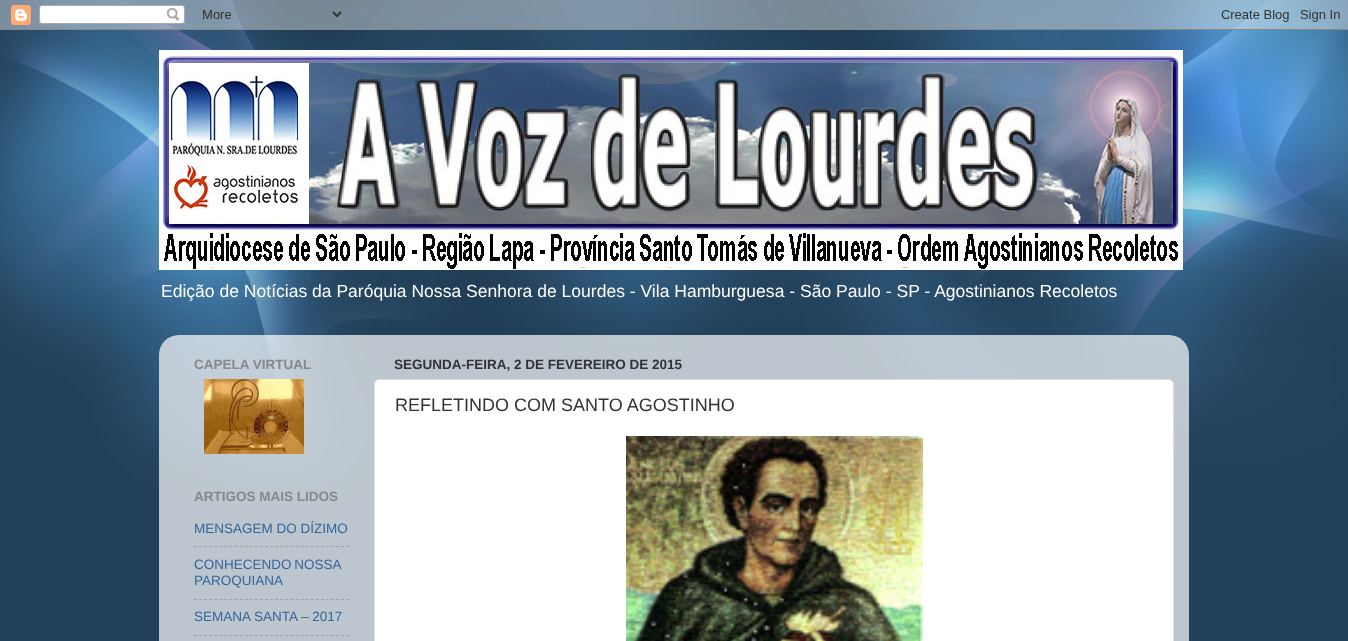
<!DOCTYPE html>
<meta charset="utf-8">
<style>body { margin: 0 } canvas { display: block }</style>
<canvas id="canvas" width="1348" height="641"></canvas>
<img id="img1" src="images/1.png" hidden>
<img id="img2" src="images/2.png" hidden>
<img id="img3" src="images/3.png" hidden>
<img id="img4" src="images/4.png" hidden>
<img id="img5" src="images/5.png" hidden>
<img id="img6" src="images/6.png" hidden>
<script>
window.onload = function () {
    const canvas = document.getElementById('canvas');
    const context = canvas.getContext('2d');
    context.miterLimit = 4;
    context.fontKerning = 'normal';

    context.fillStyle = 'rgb(34, 64, 90)';
    context.fillRect(0, 0, 1348, 641);
    context.drawImage(document.getElementById('img1'), 0, 0, 1348, 504);
    context.drawImage(document.getElementById('img2'), 0, 0, 1348, 30);
    context.drawImage(document.getElementById('img3'), 159, 50, 1024, 220);
    context.drawImage(document.getElementById('img4'), 159, 335, 1030, 306);
    context.drawImage(document.getElementById('img5'), 204, 379, 100, 75);
    context.beginPath();
    context.moveTo(194, 546.5);
    context.lineTo(349, 546.5);
    context.strokeStyle = 'rgb(159, 163, 167)';
    context.setLineDash([3, 2.07]);
    context.stroke();
    context.beginPath();
    context.moveTo(194, 599.5);
    context.lineTo(349, 599.5);
    context.stroke();
    context.beginPath();
    context.moveTo(194, 635.5);
    context.lineTo(349, 635.5);
    context.stroke();
    context.fillStyle = 'rgb(255, 255, 255)';
    context.beginPath();
    context.roundRect(374.5, 379.5, 799, 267, 4.5);
    context.fill();
    context.strokeStyle = 'rgb(221, 221, 221)';
    context.setLineDash([]);
    context.stroke();
    context.drawImage(document.getElementById('img6'), 626, 436, 297, 205);
    context.font = '17.55px Liberation Sans';
    context.fillText('Edição de Notícias da Paróquia Nossa Senhora de Lourdes - Vila Hamburguesa - São Paulo - SP - Agostinianos Recoletos', 161, 297);
    context.font = 'bold 13.5px Liberation Sans';
    context.fillStyle = 'rgb(136, 136, 136)';
    context.fillText('CAPELA VIRTUAL', 194, 369);
    context.fillText('ARTIGOS MAIS LIDOS', 194, 501);
    context.font = '13.5px Liberation Sans';
    context.fillStyle = 'rgb(51, 102, 153)';
    context.fillText('MENSAGEM DO DÍZIMO', 194, 533);
    context.wordSpacing = '-1px';
    context.fillText('CONHECENDO NOSSA', 194, 569);
    context.wordSpacing = '0px';
    context.fillText('PAROQUIANA', 194, 585);
    context.fillText('SEMANA SANTA – 2017', 194, 621);
    context.font = 'bold 13.5px Liberation Sans';
    context.fillStyle = 'rgb(51, 51, 51)';
    context.fillText('SEGUNDA-FEIRA, 2 DE FEVEREIRO DE 2015', 394, 369);
    context.font = '18px Liberation Sans';
    context.fillText('REFLETINDO COM SANTO AGOSTINHO', 395, 411);
};
</script>
